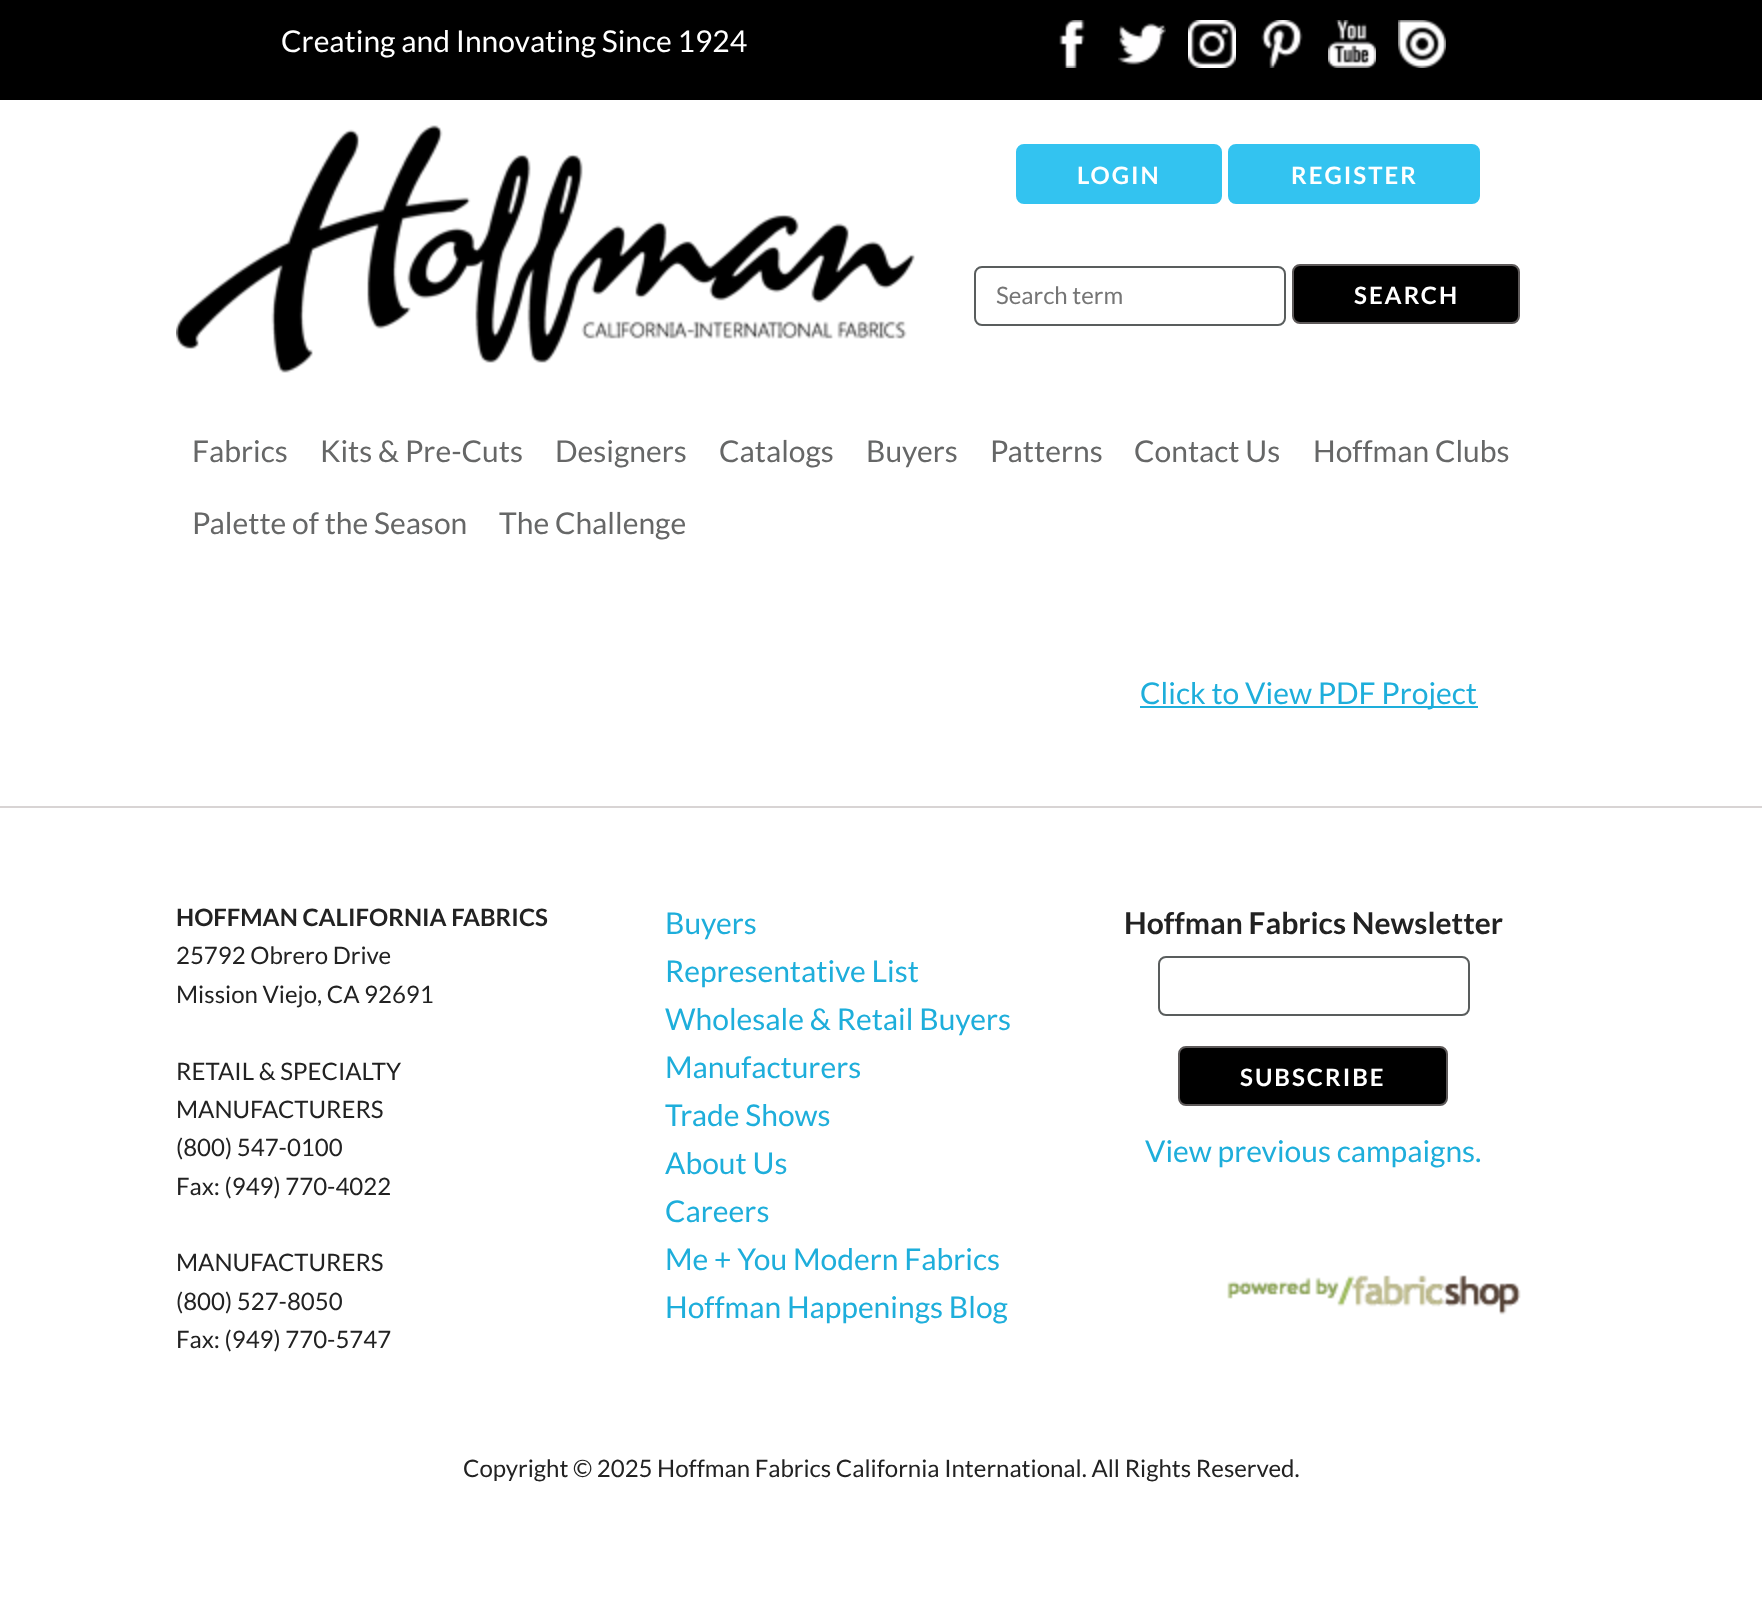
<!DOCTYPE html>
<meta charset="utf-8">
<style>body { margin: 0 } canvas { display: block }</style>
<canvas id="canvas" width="1762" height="1619"></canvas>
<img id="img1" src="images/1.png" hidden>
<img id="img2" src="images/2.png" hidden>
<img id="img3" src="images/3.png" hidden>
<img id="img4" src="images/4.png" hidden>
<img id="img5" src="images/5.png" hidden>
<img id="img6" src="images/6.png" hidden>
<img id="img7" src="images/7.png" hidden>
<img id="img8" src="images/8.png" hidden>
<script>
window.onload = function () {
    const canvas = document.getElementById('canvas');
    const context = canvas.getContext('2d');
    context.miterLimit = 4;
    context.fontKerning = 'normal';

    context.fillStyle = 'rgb(255, 255, 255)';
    context.fillRect(0, 0, 1762, 1619);
    context.fillStyle = 'rgb(0, 0, 0)';
    context.fillRect(0, 0, 1762, 100);
    context.drawImage(document.getElementById('img1'), 1059, 20, 26, 48);
    context.drawImage(document.getElementById('img2'), 1118, 23, 48, 42);
    context.drawImage(document.getElementById('img3'), 1188, 20, 48, 48);
    context.drawImage(document.getElementById('img4'), 1261, 20, 42, 48);
    context.drawImage(document.getElementById('img5'), 1328, 20, 48, 48);
    context.drawImage(document.getElementById('img6'), 1398, 20, 48, 48);
    context.drawImage(document.getElementById('img7'), 176, 125, 739, 248);
    context.fillStyle = 'rgb(51, 195, 240)';
    context.beginPath();
    context.roundRect(1017, 145, 204, 58, 7);
    context.fill();
    context.strokeStyle = 'rgb(51, 195, 240)';
    context.lineWidth = 2;
    context.stroke();
    context.beginPath();
    context.roundRect(1229, 145, 250, 58, 7);
    context.fill();
    context.stroke();
    context.beginPath();
    context.roundRect(975, 267, 310, 58, 7);
    context.strokeStyle = 'rgb(89, 93, 93)';
    context.stroke();
    context.fillStyle = 'rgb(0, 0, 0)';
    context.beginPath();
    context.roundRect(1293, 265, 226, 58, 7);
    context.fill();
    context.strokeStyle = 'rgb(93, 89, 89)';
    context.stroke();
    context.fillStyle = 'rgb(30, 174, 219)';
    context.fillRect(1140, 706, 338, 2);
    context.fillStyle = 'rgb(216, 212, 212)';
    context.fillRect(0, 806, 1762, 2);
    context.beginPath();
    context.roundRect(1159, 957, 310, 58, 7);
    context.strokeStyle = 'rgb(89, 93, 93)';
    context.stroke();
    context.fillStyle = 'rgb(0, 0, 0)';
    context.beginPath();
    context.roundRect(1179, 1047, 268, 58, 7);
    context.fill();
    context.strokeStyle = 'rgb(93, 89, 89)';
    context.stroke();
    context.drawImage(document.getElementById('img8'), 1227, 1275, 294, 40);
    context.font = '30px Lato';
    context.fillStyle = 'rgb(255, 255, 255)';
    context.fillText('Creating and Innovating Since 1924', 281, 52);
    context.letterSpacing = '2px';
    context.font = 'bold 24px Lato';
    context.fillText('LOGIN', 1077, 184);
    context.fillText('REGISTER', 1291, 184);
    context.letterSpacing = '0px';
    context.font = '24px Lato';
    context.fillStyle = 'rgb(117, 117, 117)';
    context.fillText('Search term', 996, 304);
    context.letterSpacing = '2px';
    context.font = 'bold 24px Lato';
    context.fillStyle = 'rgb(255, 255, 255)';
    context.fillText('SEARCH', 1354, 304);
    context.letterSpacing = '0px';
    context.font = '30px Lato';
    context.fillStyle = 'rgb(102, 103, 103)';
    context.fillText('Fabrics', 192, 462);
    context.fillText('Kits & Pre-Cuts', 320, 462);
    context.fillText('Designers', 555, 462);
    context.fillText('Catalogs', 719, 462);
    context.fillText('Buyers', 866, 462);
    context.fillText('Patterns', 990, 462);
    context.fillText('Contact Us', 1134, 462);
    context.fillText('Hoffman Clubs', 1313, 462);
    context.fillText('Palette of the Season', 192, 534);
    context.fillText('The Challenge', 499, 534);
    context.fillStyle = 'rgb(30, 174, 219)';
    context.fillText('Click to View PDF Project', 1140, 704);
    context.font = 'bold 24px Lato';
    context.fillStyle = 'rgb(34, 34, 34)';
    context.fillText('HOFFMAN CALIFORNIA FABRICS', 176, 926);
    context.font = '24px Lato';
    context.fillText('25792 Obrero Drive', 176, 964);
    context.fillText('Mission Viejo, CA 92691', 176, 1003);
    context.fillText('RETAIL & SPECIALTY', 176, 1080);
    context.fillText('MANUFACTURERS', 176, 1118);
    context.fillText('(800) 547-0100', 176, 1156);
    context.fillText('Fax: (949) 770-4022', 176, 1195);
    context.fillText('MANUFACTURERS', 176, 1271);
    context.fillText('(800) 527-8050', 176, 1310);
    context.fillText('Fax: (949) 770-5747', 176, 1348);
    context.font = '30px Lato';
    context.fillStyle = 'rgb(30, 174, 219)';
    context.fillText('Buyers', 665, 934);
    context.fillText('Representative List', 665, 982);
    context.fillText('Wholesale & Retail Buyers', 665, 1030);
    context.fillText('Manufacturers', 665, 1078);
    context.fillText('Trade Shows', 665, 1126);
    context.fillText('About Us', 665, 1174);
    context.fillText('Careers', 665, 1222);
    context.fillText('Me + You Modern Fabrics', 665, 1270);
    context.fillText('Hoffman Happenings Blog', 665, 1318);
    context.font = 'bold 30px Lato';
    context.fillStyle = 'rgb(34, 34, 34)';
    context.fillText('Hoffman Fabrics Newsletter', 1124, 934);
    context.letterSpacing = '2px';
    context.font = 'bold 24px Lato';
    context.fillStyle = 'rgb(255, 255, 255)';
    context.fillText('SUBSCRIBE', 1240, 1086);
    context.letterSpacing = '0px';
    context.font = '30px Lato';
    context.fillStyle = 'rgb(30, 174, 219)';
    context.fillText('View previous campaigns.', 1145, 1162);
    context.font = '24px Lato';
    context.fillStyle = 'rgb(34, 34, 34)';
    context.fillText('Copyright © 2025 Hoffman Fabrics California International. All Rights Reserved.', 463, 1477);
};
</script>
